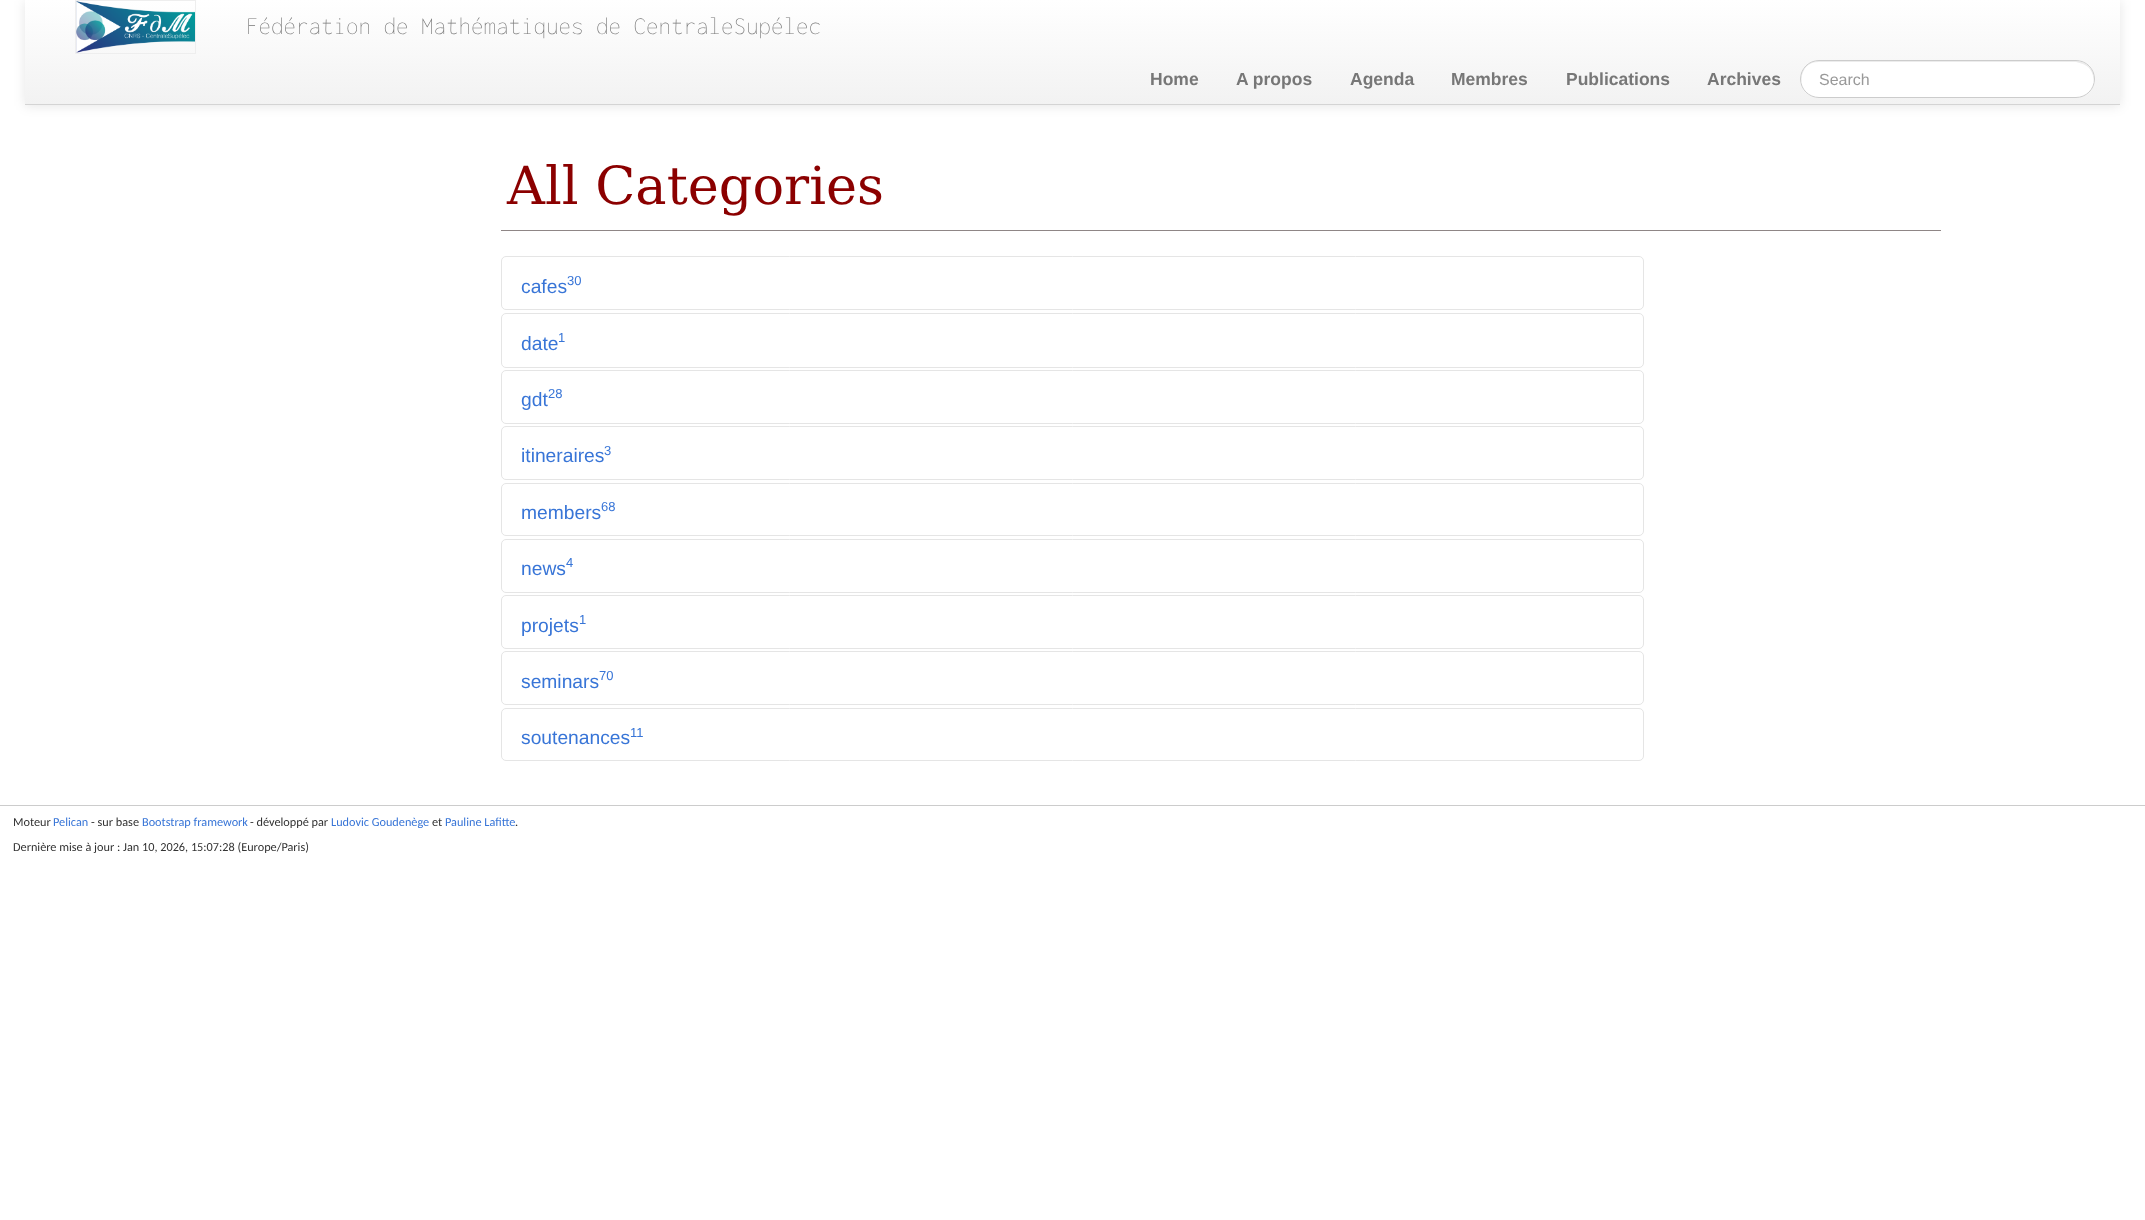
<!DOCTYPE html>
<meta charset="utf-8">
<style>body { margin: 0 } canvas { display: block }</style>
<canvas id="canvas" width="2145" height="1220"></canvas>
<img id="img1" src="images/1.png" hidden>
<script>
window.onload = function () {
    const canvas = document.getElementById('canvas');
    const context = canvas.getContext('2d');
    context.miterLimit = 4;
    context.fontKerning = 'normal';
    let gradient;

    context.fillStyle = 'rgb(255, 255, 255)';
    context.fillRect(0, 0, 2145, 1220);
    context.fillStyle = 'rgba(0, 0, 0, 0.1)';
    context.filter = 'blur(6px)';
    context.beginPath();
    context.rect(25, 1, 2095, 105);
    context.fill();
    context.filter = 'none';
    gradient = context.createLinearGradient(1073, 0, 1073, 104);
    gradient.addColorStop(0, 'rgb(255, 255, 255)');
    gradient.addColorStop(1, 'rgb(242, 242, 242)');
    context.fillStyle = gradient;
    context.fillRect(25, 0, 2095, 104);
    context.fillStyle = 'rgb(212, 212, 212)';
    context.fillRect(25, 104, 2095, 1);
    context.strokeStyle = 'rgb(238, 238, 238)';
    context.strokeRect(75.5, 0.5, 120, 53);
    context.drawImage(document.getElementById('img1'), 76, 1, 119, 52);
    context.fillStyle = 'rgb(255, 255, 255)';
    context.beginPath();
    context.roundRect(1800, 60, 295, 38, 19);
    context.fill();
    context.fillStyle = 'rgb(236, 236, 236)';
    context.beginPath();
    context.moveTo(1819, 62);
    context.lineTo(2076, 62);
    context.lineTo(2083, 64);
    context.bezierCurveTo(2091, 67, 2095, 76, 2093, 84);
    context.lineTo(2094, 78);
    context.bezierCurveTo(2094, 69, 2086, 61, 2076, 61);
    context.lineTo(1818, 61);
    context.bezierCurveTo(1809, 61, 1801, 69, 1801, 78);
    context.bezierCurveTo(1801, 81, 1802, 84, 1803, 87);
    context.bezierCurveTo(1799, 76, 1804, 62, 1819, 62);
    context.closePath();
    context.fill();
    context.beginPath();
    context.roundRect(1800.5, 60.5, 294, 37, 18.5);
    context.strokeStyle = 'rgb(204, 204, 204)';
    context.stroke();
    context.fillStyle = 'rgb(143, 134, 134)';
    context.fillRect(501, 230, 1440, 1);
    context.beginPath();
    context.roundRect(501.5, 256.5, 1142, 53, 4.5);
    context.strokeStyle = 'rgb(229, 229, 229)';
    context.stroke();
    context.beginPath();
    context.roundRect(501.5, 313.5, 1142, 54, 4.5);
    context.stroke();
    context.beginPath();
    context.roundRect(501.5, 370.5, 1142, 53, 4.5);
    context.stroke();
    context.beginPath();
    context.roundRect(501.5, 426.5, 1142, 53, 4.5);
    context.stroke();
    context.beginPath();
    context.roundRect(501.5, 483.5, 1142, 52, 4.5);
    context.stroke();
    context.beginPath();
    context.roundRect(501.5, 539.5, 1142, 53, 4.5);
    context.stroke();
    context.beginPath();
    context.roundRect(501.5, 595.5, 1142, 53, 4.5);
    context.stroke();
    context.beginPath();
    context.roundRect(501.5, 651.5, 1142, 53, 4.5);
    context.stroke();
    context.beginPath();
    context.roundRect(501.5, 708.5, 1142, 52, 4.5);
    context.stroke();
    context.fillStyle = 'rgb(204, 204, 204)';
    context.fillRect(0, 805, 2145, 1);
    context.font = '200 25px Inconsolata';
    context.fillStyle = 'rgb(119, 119, 119)';
    context.fillText('Fédération de Mathématiques de CentraleSupélec', 246, 34);
    context.font = 'bold 17.5px Liberation Sans';
    context.fillText('Home', 1150, 85);
    context.fillText('A propos', 1236, 85);
    context.fillText('Agenda', 1350, 85);
    context.fillText('Membres', 1451, 85);
    context.fillText('Publications', 1566, 85);
    context.fillText('Archives', 1707, 85);
    context.font = '16px Liberation Sans';
    context.fillStyle = 'rgb(153, 153, 153)';
    context.fillText('Search', 1819, 85);
    context.font = '52.5px DejaVu Serif';
    context.fillStyle = 'rgb(139, 0, 0)';
    context.fillText('All Categories', 507, 204);
    context.font = '19.25px Liberation Sans';
    context.fillStyle = 'rgb(56, 117, 215)';
    context.fillText('cafes', 521, 293);
    context.font = '13px Liberation Sans';
    context.fillText('30', 567, 285);
    context.font = '19.25px Liberation Sans';
    context.fillText('date', 521, 350);
    context.font = '13px Liberation Sans';
    context.fillText('1', 558, 342);
    context.font = '19.25px Liberation Sans';
    context.fillText('gdt', 521, 406);
    context.font = '13px Liberation Sans';
    context.fillText('28', 548, 398);
    context.font = '19.25px Liberation Sans';
    context.fillText('itineraires', 521, 462);
    context.font = '13px Liberation Sans';
    context.fillText('3', 604, 455);
    context.font = '19.25px Liberation Sans';
    context.fillText('members', 521, 519);
    context.font = '13px Liberation Sans';
    context.fillText('68', 601, 511);
    context.fillText('4', 566, 567);
    context.font = '19.25px Liberation Sans';
    context.fillText('news', 521, 575);
    context.fillText('projets', 521, 632);
    context.font = '13px Liberation Sans';
    context.fillText('1', 579, 624);
    context.font = '19.25px Liberation Sans';
    context.fillText('seminars', 521, 688);
    context.font = '13px Liberation Sans';
    context.fillText('70', 599, 680);
    context.font = '19.25px Liberation Sans';
    context.fillText('soutenances', 521, 744);
    context.font = '13px Liberation Sans';
    context.fillText('11', 630, 737);
    context.font = '12.25px Carlito';
    context.fillStyle = 'rgb(51, 51, 51)';
    context.fillText('Moteur', 13, 826);
    context.fillStyle = 'rgb(56, 117, 215)';
    context.fillText('Pelican', 53, 826);
    context.fillStyle = 'rgb(51, 51, 51)';
    context.fillText('- sur base', 91, 826);
    context.fillStyle = 'rgb(56, 117, 215)';
    context.fillText('Bootstrap framework', 142, 826);
    context.fillStyle = 'rgb(51, 51, 51)';
    context.fillText('- développé par', 250, 826);
    context.fillStyle = 'rgb(56, 117, 215)';
    context.fillText('Ludovic Goudenège', 331, 826);
    context.fillStyle = 'rgb(51, 51, 51)';
    context.fillText('et', 432, 826);
    context.fillStyle = 'rgb(56, 117, 215)';
    context.fillText('Pauline Lafitte', 445, 826);
    context.fillStyle = 'rgb(51, 51, 51)';
    context.fillText('.', 515, 826);
    context.fillText('Dernière mise à jour : Jan 10, 2026, 15:07:28 (Europe/Paris)', 13, 851);
};
</script>
